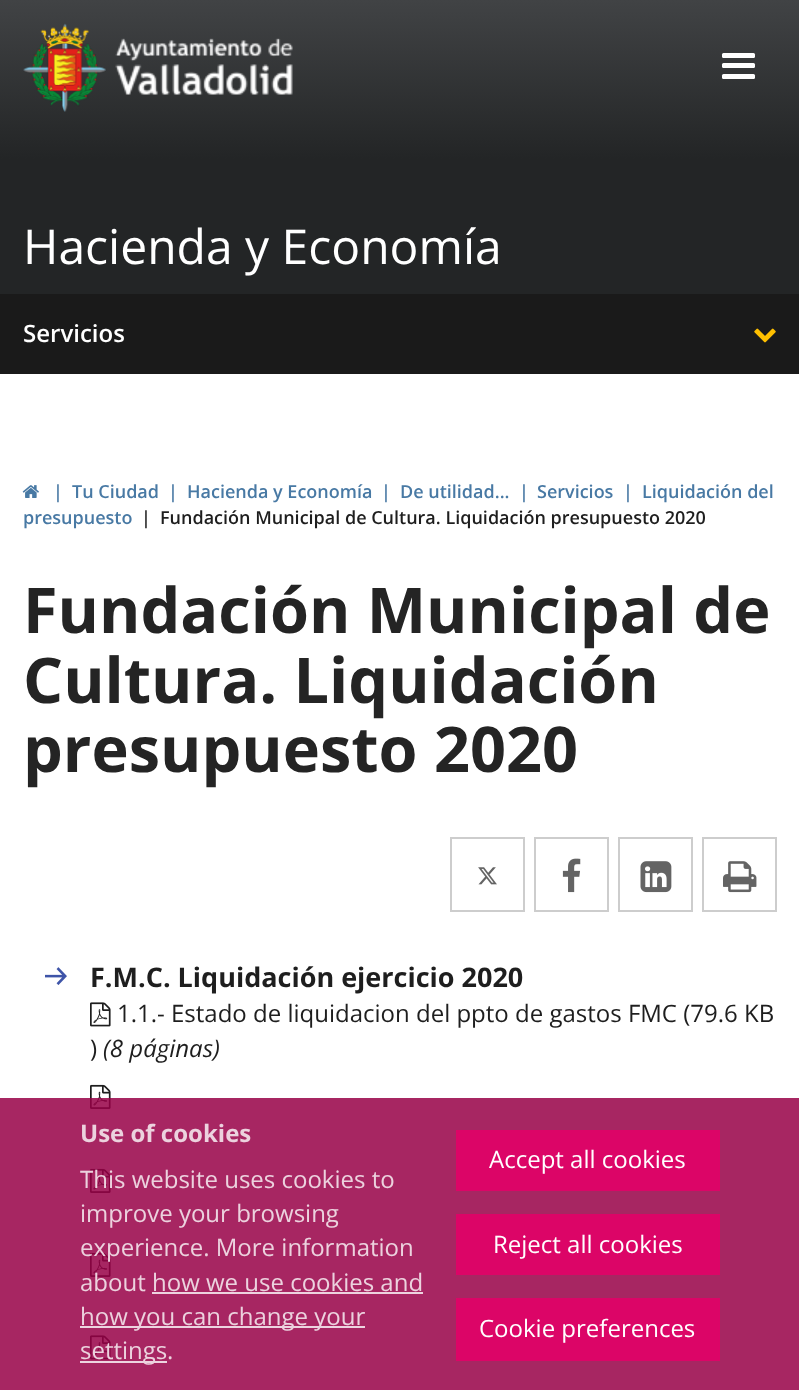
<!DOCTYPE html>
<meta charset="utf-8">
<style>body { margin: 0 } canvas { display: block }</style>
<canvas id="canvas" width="799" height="1390"></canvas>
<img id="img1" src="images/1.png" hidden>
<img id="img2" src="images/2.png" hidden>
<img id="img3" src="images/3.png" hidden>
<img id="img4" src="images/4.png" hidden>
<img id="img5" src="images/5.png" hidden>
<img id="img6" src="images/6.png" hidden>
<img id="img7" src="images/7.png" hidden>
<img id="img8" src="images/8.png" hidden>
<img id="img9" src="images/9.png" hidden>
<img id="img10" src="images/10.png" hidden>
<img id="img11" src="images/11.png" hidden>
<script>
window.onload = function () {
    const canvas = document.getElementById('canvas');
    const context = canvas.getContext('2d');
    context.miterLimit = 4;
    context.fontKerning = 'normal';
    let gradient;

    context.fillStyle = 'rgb(255, 255, 255)';
    context.fillRect(0, 0, 799, 1390);
    gradient = context.createLinearGradient(400, 159, 400, 0);
    gradient.addColorStop(0, 'rgb(35, 37, 38)');
    gradient.addColorStop(1, 'rgb(65, 67, 69)');
    context.fillStyle = gradient;
    context.fillRect(0, 0, 799, 159);
    context.drawImage(document.getElementById('img1'), 23, 23, 83, 89);
    context.drawImage(document.getElementById('img2'), 115, 38, 178, 57);
    context.fillStyle = 'rgb(255, 255, 255)';
    context.beginPath();
    context.roundRect(722, 53, 33, 5, 1.5);
    context.fill();
    context.beginPath();
    context.roundRect(722, 63, 33, 5, 1.5);
    context.fill();
    context.beginPath();
    context.roundRect(722, 74, 33, 5, 1.5);
    context.fill();
    context.fillStyle = 'rgb(35, 37, 38)';
    context.fillRect(0, 159, 799, 135);
    context.fillStyle = 'rgb(26, 26, 26)';
    context.fillRect(0, 294, 799, 80);
    context.drawImage(document.getElementById('img3'), 754, 328, 22, 15);
    context.drawImage(document.getElementById('img4'), 22, 485, 17, 13);
    context.strokeStyle = 'rgb(205, 205, 205)';
    context.lineWidth = 2;
    context.strokeRect(451, 838, 73, 73);
    context.drawImage(document.getElementById('img5'), 478, 867, 19, 18);
    context.strokeRect(535, 838, 73, 73);
    context.drawImage(document.getElementById('img6'), 562, 858, 19, 35);
    context.strokeRect(619, 838, 73, 73);
    context.drawImage(document.getElementById('img7'), 640, 861, 32, 32);
    context.strokeRect(703, 838, 73, 73);
    context.drawImage(document.getElementById('img8'), 723, 861, 34, 32);
    context.drawImage(document.getElementById('img9'), 45, 967, 22, 18);
    context.drawImage(document.getElementById('img10'), 90, 1002, 21, 25);
    context.drawImage(document.getElementById('img11'), 90, 1084, 21, 25);
    context.drawImage(document.getElementById('img11'), 90, 1168, 21, 25);
    context.drawImage(document.getElementById('img11'), 90, 1252, 21, 25);
    context.drawImage(document.getElementById('img10'), 90, 1335, 21, 25);
    context.fillStyle = 'rgba(152, 0, 70, 0.85)';
    context.fillRect(0, 1098, 799, 292);
    context.fillStyle = 'rgba(255, 255, 255, 0.8)';
    context.fillRect(152, 1292, 271, 2);
    context.fillStyle = 'rgb(237, 212, 224)';
    context.fillRect(80, 1326, 285, 2);
    context.fillRect(80, 1361, 87, 2);
    context.fillStyle = 'rgba(229, 0, 105, 0.85)';
    context.fillRect(456, 1130, 264, 61);
    context.fillRect(456, 1214, 264, 61);
    context.fillRect(456, 1298, 264, 63);
    context.font = '48px Open Sans';
    context.fillStyle = 'rgb(255, 255, 255)';
    context.fillText('Hacienda y Economía', 23, 264);
    context.font = '600 24px Open Sans';
    context.fillText('Servicios', 23, 342);
    context.font = '600 18px Open Sans';
    context.fillStyle = 'rgb(72, 121, 164)';
    context.fillText('|', 53, 498);
    context.fillText('Tu Ciudad', 72, 498);
    context.fillText('|', 168, 498);
    context.fillText('Hacienda y Economía', 187, 498);
    context.fillText('|', 381, 498);
    context.fillText('De utilidad...', 400, 498);
    context.fillText('|', 519, 498);
    context.fillText('Servicios', 537, 498);
    context.fillText('|', 623, 498);
    context.fillText('Liquidación del', 642, 498);
    context.fillText('presupuesto', 23, 524);
    context.fillStyle = 'rgb(30, 30, 30)';
    context.fillText('|', 141, 524);
    context.fillText('Fundación Municipal de Cultura. Liquidación presupuesto 2020', 160, 524);
    context.font = 'bold 63px Open Sans';
    context.fillStyle = 'rgb(36, 36, 36)';
    context.fillText('Fundación Municipal de', 23, 633);
    context.fillText('Cultura. Liquidación', 23, 703);
    context.fillText('presupuesto 2020', 23, 772);
    context.font = 'bold 27px Open Sans';
    context.fillStyle = 'rgb(30, 30, 30)';
    context.fillText('F.M.C. Liquidación ejercicio 2020', 90, 987);
    context.font = '24px Open Sans';
    context.fillText('1.1.- Estado de liquidacion del ppto de gastos FMC (79.6 KB', 117, 1022);
    context.fillText(')', 90, 1057);
    context.font = 'italic 24px Open Sans';
    context.fillText('(8 páginas)', 103, 1057);
    context.font = 'bold 24px Open Sans';
    context.fillStyle = 'rgb(236, 210, 222)';
    context.fillText('Use of cookies', 80, 1142);
    context.font = '24px Open Sans';
    context.fillText('This website uses cookies to', 80, 1188);
    context.fillText('improve your browsing', 80, 1222);
    context.fillText('experience. More information', 80, 1256);
    context.fillText('about', 80, 1291);
    context.fillText('how we use cookies and', 152, 1291);
    context.fillText('how you can change your', 80, 1325);
    context.fillText('settings', 80, 1359);
    context.fillText('.', 167, 1359);
    context.fillStyle = 'rgb(255, 255, 255)';
    context.fillText('Accept all cookies', 489, 1168);
    context.fillText('Reject all cookies', 493, 1253);
    context.fillText('Cookie preferences', 479, 1337);
};
</script>
